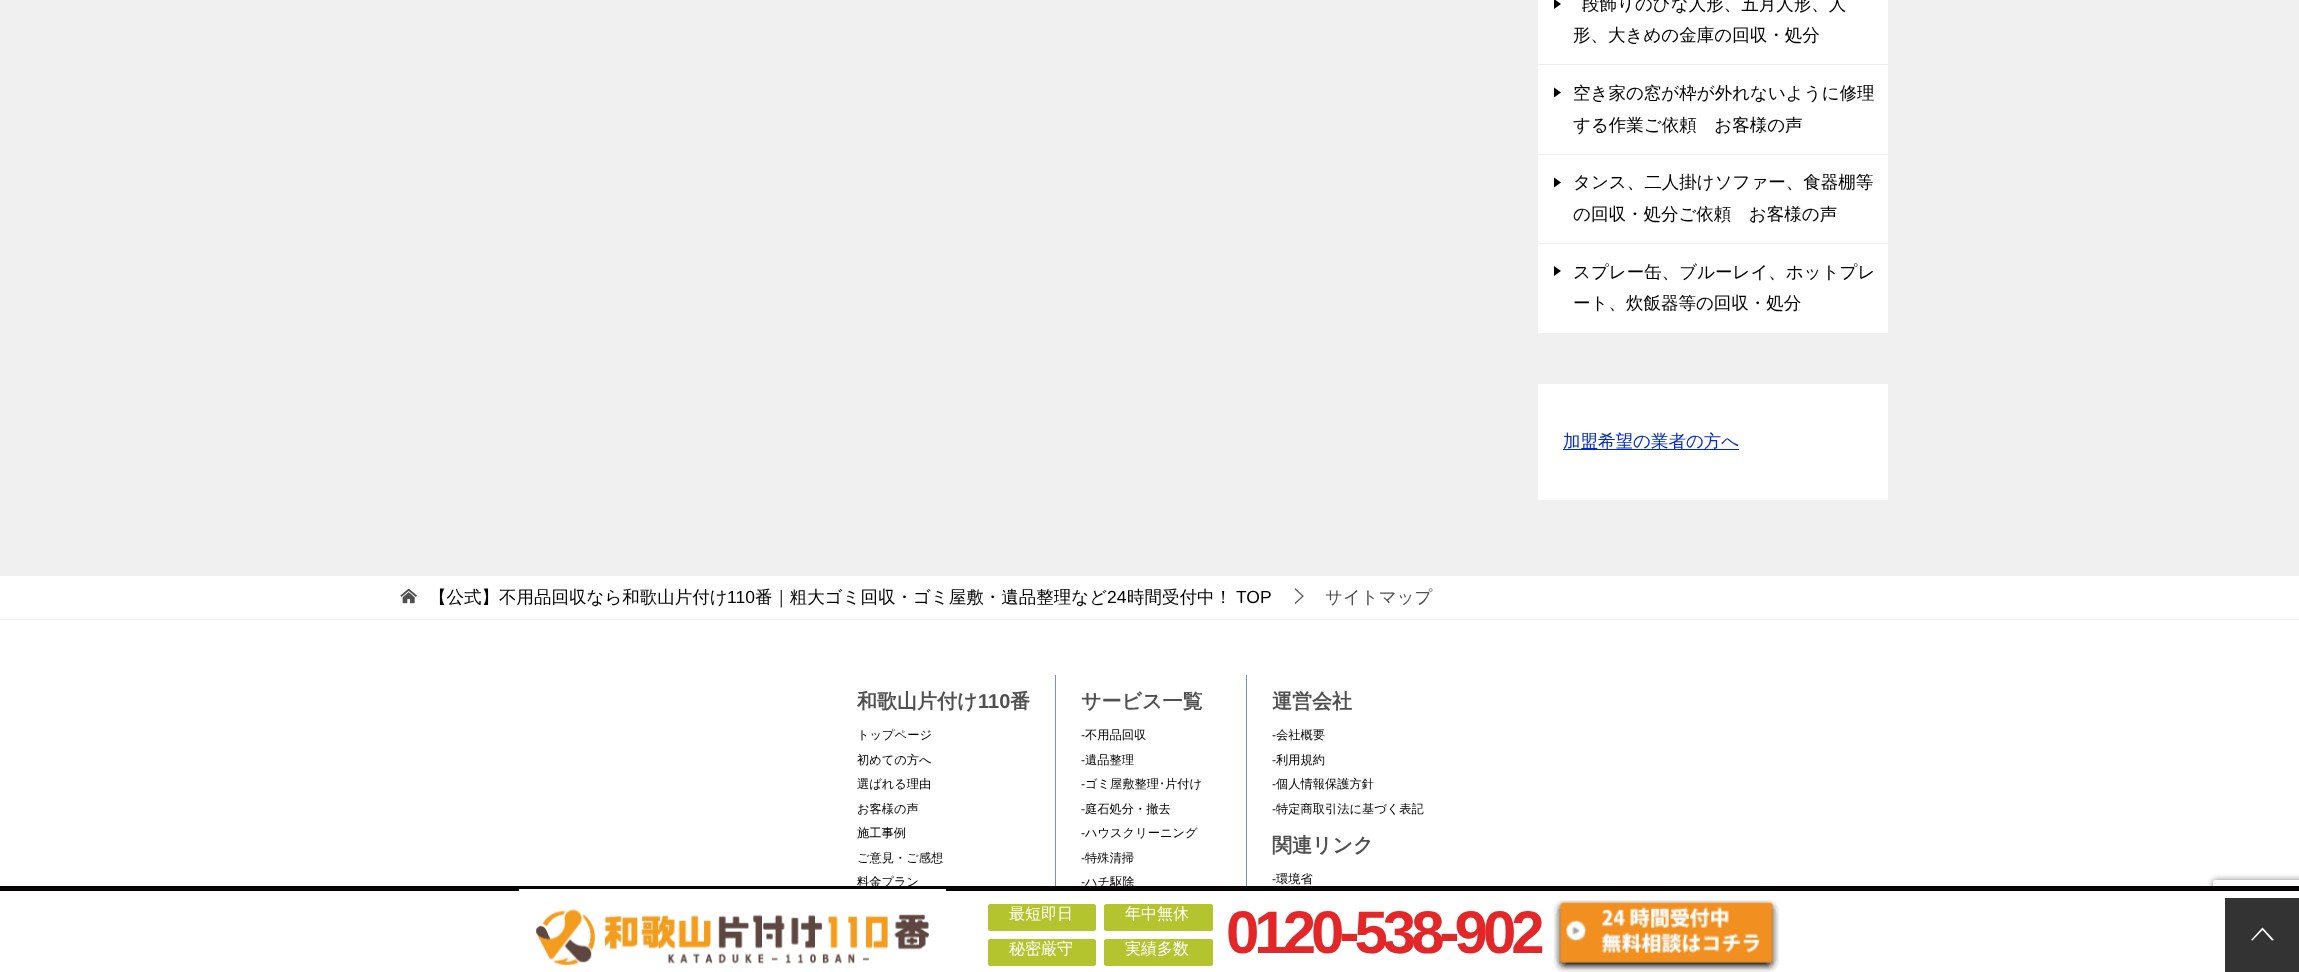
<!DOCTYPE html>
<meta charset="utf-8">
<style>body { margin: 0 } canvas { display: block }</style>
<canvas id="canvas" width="2299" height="972"></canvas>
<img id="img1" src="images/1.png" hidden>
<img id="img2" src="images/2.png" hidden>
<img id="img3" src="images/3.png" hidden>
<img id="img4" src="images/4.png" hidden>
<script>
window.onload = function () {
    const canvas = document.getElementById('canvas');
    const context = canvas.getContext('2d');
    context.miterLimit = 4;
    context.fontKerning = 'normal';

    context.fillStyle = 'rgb(240, 240, 240)';
    context.fillRect(0, 0, 2299, 972);
    context.fillStyle = 'rgb(255, 255, 255)';
    context.fillRect(1538, 0, 350, 333);
    context.fillStyle = 'rgb(238, 238, 238)';
    context.fillRect(1538, 64, 350, 1);
    context.fillStyle = 'rgb(0, 0, 0)';
    context.beginPath();
    context.moveTo(1554, 9);
    context.lineTo(1554, -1);
    context.lineTo(1561, 4);
    context.closePath();
    context.fill();
    context.fillStyle = 'rgb(238, 238, 238)';
    context.fillRect(1538, 154, 350, 1);
    context.fillStyle = 'rgb(0, 0, 0)';
    context.beginPath();
    context.moveTo(1554, 97.5);
    context.lineTo(1554, 87.5);
    context.lineTo(1561, 92.5);
    context.closePath();
    context.fill();
    context.fillStyle = 'rgb(238, 238, 238)';
    context.fillRect(1538, 243, 350, 1);
    context.fillStyle = 'rgb(0, 0, 0)';
    context.beginPath();
    context.moveTo(1554, 187.5);
    context.lineTo(1554, 177.5);
    context.lineTo(1561, 182.5);
    context.closePath();
    context.fill();
    context.beginPath();
    context.moveTo(1554, 276);
    context.lineTo(1554, 266);
    context.lineTo(1561, 271);
    context.closePath();
    context.fill();
    context.fillStyle = 'rgb(255, 255, 255)';
    context.fillRect(1538, 384, 350, 116);
    context.fillStyle = 'rgb(3, 41, 206)';
    context.fillRect(1563, 449, 176, 1);
    context.fillStyle = 'rgb(255, 255, 255)';
    context.fillRect(0, 576, 2299, 43);
    context.drawImage(document.getElementById('img1'), 400, 589, 17, 15);
    context.drawImage(document.getElementById('img2'), 1294, 588, 10, 17);
    context.fillRect(0, 620, 2299, 266);
    context.fillStyle = 'rgb(118, 151, 170)';
    context.fillRect(1246, 675, 1, 211);
    context.fillRect(1055, 675, 1, 211);
    context.save();
    context.beginPath();
    context.moveTo(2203, 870);
    context.lineTo(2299, 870);
    context.lineTo(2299, 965);
    context.lineTo(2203, 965);
    context.closePath();
    context.moveTo(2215.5, 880);
    context.lineTo(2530.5, 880);
    context.bezierCurveTo(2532, 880, 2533, 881, 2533, 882.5);
    context.lineTo(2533, 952.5);
    context.bezierCurveTo(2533, 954, 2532, 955, 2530.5, 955);
    context.lineTo(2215.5, 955);
    context.bezierCurveTo(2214, 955, 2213, 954, 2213, 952.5);
    context.lineTo(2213, 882.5);
    context.bezierCurveTo(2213, 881, 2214, 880, 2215.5, 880);
    context.closePath();
    context.clip('evenodd');
    context.fillStyle = 'rgb(128, 128, 128)';
    context.filter = 'blur(3px)';
    context.beginPath();
    context.roundRect(2213, 880, 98, 75, 2.5);
    context.fill();
    context.filter = 'none';
    context.restore();
    context.fillStyle = 'rgb(255, 255, 255)';
    context.fillRect(0, 891, 2299, 81);
    context.drawImage(document.getElementById('img3'), 536, 909, 393, 57);
    context.fillStyle = 'rgb(179, 196, 46)';
    context.beginPath();
    context.roundRect(988, 904, 108, 27, 2.5);
    context.fill();
    context.beginPath();
    context.roundRect(1104, 904, 109, 27, 2.5);
    context.fill();
    context.beginPath();
    context.roundRect(988, 939, 108, 27, 2.5);
    context.fill();
    context.beginPath();
    context.roundRect(1104, 939, 109, 27, 2.5);
    context.fill();
    context.drawImage(document.getElementById('img4'), 1553, 900, 226, 72);
    context.fillStyle = 'rgb(51, 51, 51)';
    context.fillRect(2225, 898, 74, 74);
    context.fillStyle = 'rgb(255, 255, 255)';
    context.beginPath();
    context.moveTo(2262.5, 927.5);
    context.lineTo(2274, 940);
    context.lineTo(2272, 940.5);
    context.lineTo(2262.5, 930);
    context.lineTo(2252.5, 940.5);
    context.lineTo(2251, 940);
    context.closePath();
    context.fill();
    context.font = '500 17.5px WenQuanYi Zen Hei';
    context.fillStyle = 'rgb(0, 0, 0)';
    context.fillText('段飾りのひな人形、五月人形、人', 1582, 10);
    context.fillText('形、大きめの金庫の回収・処分', 1573, 41);
    context.fillText('空き家の窓が枠が外れないように修理', 1573, 99);
    context.fillText('する作業ご依頼　お客様の声', 1573, 131);
    context.fillText('タンス、二人掛けソファー、食器棚等', 1573, 188);
    context.fillText('の回収・処分ご依頼　お客様の声', 1573, 220);
    context.fillText('スプレー缶、ブルーレイ、ホットプレ', 1573, 278);
    context.fillText('ート、炊飯器等の回収・処分', 1573, 309);
    context.fillStyle = 'rgb(3, 41, 206)';
    context.fillText('加盟希望の業者の方へ', 1563, 447);
    context.fillStyle = 'rgb(0, 0, 0)';
    context.fillText('【公式】不用品回収なら和歌山片付け', 429, 603);
    context.font = '17.5px Liberation Sans';
    context.fillText('110', 727, 603);
    context.font = '500 17.5px WenQuanYi Zen Hei';
    context.fillText('番｜粗大ゴミ回収・ゴミ屋敷・遺品整理など', 755, 603);
    context.font = '17.5px Liberation Sans';
    context.fillText('24', 1107, 603);
    context.font = '500 17.5px WenQuanYi Zen Hei';
    context.fillText('時間受付中！', 1127, 603);
    context.font = '17.5px Liberation Sans';
    context.fillText('TOP', 1236, 603);
    context.font = '500 17.5px WenQuanYi Zen Hei';
    context.fillStyle = 'rgb(80, 80, 80)';
    context.fillText('サイトマップ', 1325, 603);
    context.font = 'bold 20px WenQuanYi Zen Hei';
    context.fillText('和歌山片付け', 857, 708);
    context.font = 'bold 20px Liberation Sans';
    context.fillText('110', 978, 708);
    context.font = 'bold 20px WenQuanYi Zen Hei';
    context.fillText('番', 1010, 708);
    context.font = '500 12.25px WenQuanYi Zen Hei';
    context.fillStyle = 'rgb(0, 0, 0)';
    context.fillText('トップページ', 857, 739);
    context.fillText('初めての方へ', 857, 764);
    context.fillText('選ばれる理由', 857, 788);
    context.fillText('お客様の声', 857, 813);
    context.fillText('施工事例', 857, 837);
    context.fillText('ご意見・ご感想', 857, 862);
    context.fillText('料金プラン', 857, 886);
    context.font = 'bold 20px WenQuanYi Zen Hei';
    context.fillStyle = 'rgb(80, 80, 80)';
    context.fillText('サービス一覧', 1081, 708);
    context.font = '12.25px Liberation Sans';
    context.fillStyle = 'rgb(0, 0, 0)';
    context.fillText('-', 1081, 739);
    context.font = '500 12.25px WenQuanYi Zen Hei';
    context.fillText('不用品回収', 1085, 739);
    context.font = '12.25px Liberation Sans';
    context.fillText('-', 1081, 764);
    context.font = '500 12.25px WenQuanYi Zen Hei';
    context.fillText('遺品整理', 1085, 764);
    context.font = '12.25px Liberation Sans';
    context.fillText('-', 1081, 788);
    context.font = '500 12.25px WenQuanYi Zen Hei';
    context.fillText('ゴミ屋敷整理', 1085, 788);
    context.font = '12.25px IPAPGothic';
    context.fillText('･', 1159, 788);
    context.font = '500 12.25px WenQuanYi Zen Hei';
    context.fillText('片付け', 1165, 788);
    context.font = '12.25px Liberation Sans';
    context.fillText('-', 1081, 813);
    context.font = '500 12.25px WenQuanYi Zen Hei';
    context.fillText('庭石処分・撤去', 1085, 813);
    context.font = '12.25px Liberation Sans';
    context.fillText('-', 1081, 837);
    context.font = '500 12.25px WenQuanYi Zen Hei';
    context.fillText('ハウスクリーニング', 1085, 837);
    context.font = '12.25px Liberation Sans';
    context.fillText('-', 1081, 862);
    context.font = '500 12.25px WenQuanYi Zen Hei';
    context.fillText('特殊清掃', 1085, 862);
    context.font = '12.25px Liberation Sans';
    context.fillText('-', 1081, 886);
    context.font = '500 12.25px WenQuanYi Zen Hei';
    context.fillText('ハチ駆除', 1085, 886);
    context.font = 'bold 20px WenQuanYi Zen Hei';
    context.fillStyle = 'rgb(80, 80, 80)';
    context.fillText('運営会社', 1272, 708);
    context.font = '12.25px Liberation Sans';
    context.fillStyle = 'rgb(0, 0, 0)';
    context.fillText('-', 1272, 739);
    context.font = '500 12.25px WenQuanYi Zen Hei';
    context.fillText('会社概要', 1276, 739);
    context.font = '12.25px Liberation Sans';
    context.fillText('-', 1272, 764);
    context.font = '500 12.25px WenQuanYi Zen Hei';
    context.fillText('利用規約', 1276, 764);
    context.font = '12.25px Liberation Sans';
    context.fillText('-', 1272, 788);
    context.font = '500 12.25px WenQuanYi Zen Hei';
    context.fillText('個人情報保護方針', 1276, 788);
    context.font = '12.25px Liberation Sans';
    context.fillText('-', 1272, 813);
    context.font = '500 12.25px WenQuanYi Zen Hei';
    context.fillText('特定商取引法に基づく表記', 1276, 813);
    context.font = 'bold 20px WenQuanYi Zen Hei';
    context.fillStyle = 'rgb(80, 80, 80)';
    context.fillText('関連リンク', 1272, 852);
    context.font = '12.25px Liberation Sans';
    context.fillStyle = 'rgb(0, 0, 0)';
    context.fillText('-', 1272, 883);
    context.font = '500 12.25px WenQuanYi Zen Hei';
    context.fillText('環境省', 1276, 883);
    context.fillStyle = 'rgb(8, 4, 4)';
    context.fillRect(0, 886, 2299, 5);
    context.fillStyle = 'rgb(255, 255, 255)';
    context.fillRect(519, 889, 427, 2);
    context.font = '500 16px WenQuanYi Zen Hei';
    context.fillText('最短即日', 1009, 919);
    context.fillText('年中無休', 1125, 919);
    context.fillText('秘密厳守', 1009, 954);
    context.fillText('実績多数', 1125, 954);
    context.letterSpacing = '-5px';
    context.font = 'bold 60px Liberation Sans';
    context.fillStyle = 'rgb(227, 39, 40)';
    context.fillText('0120-538-902', 1226, 953);
};
</script>
